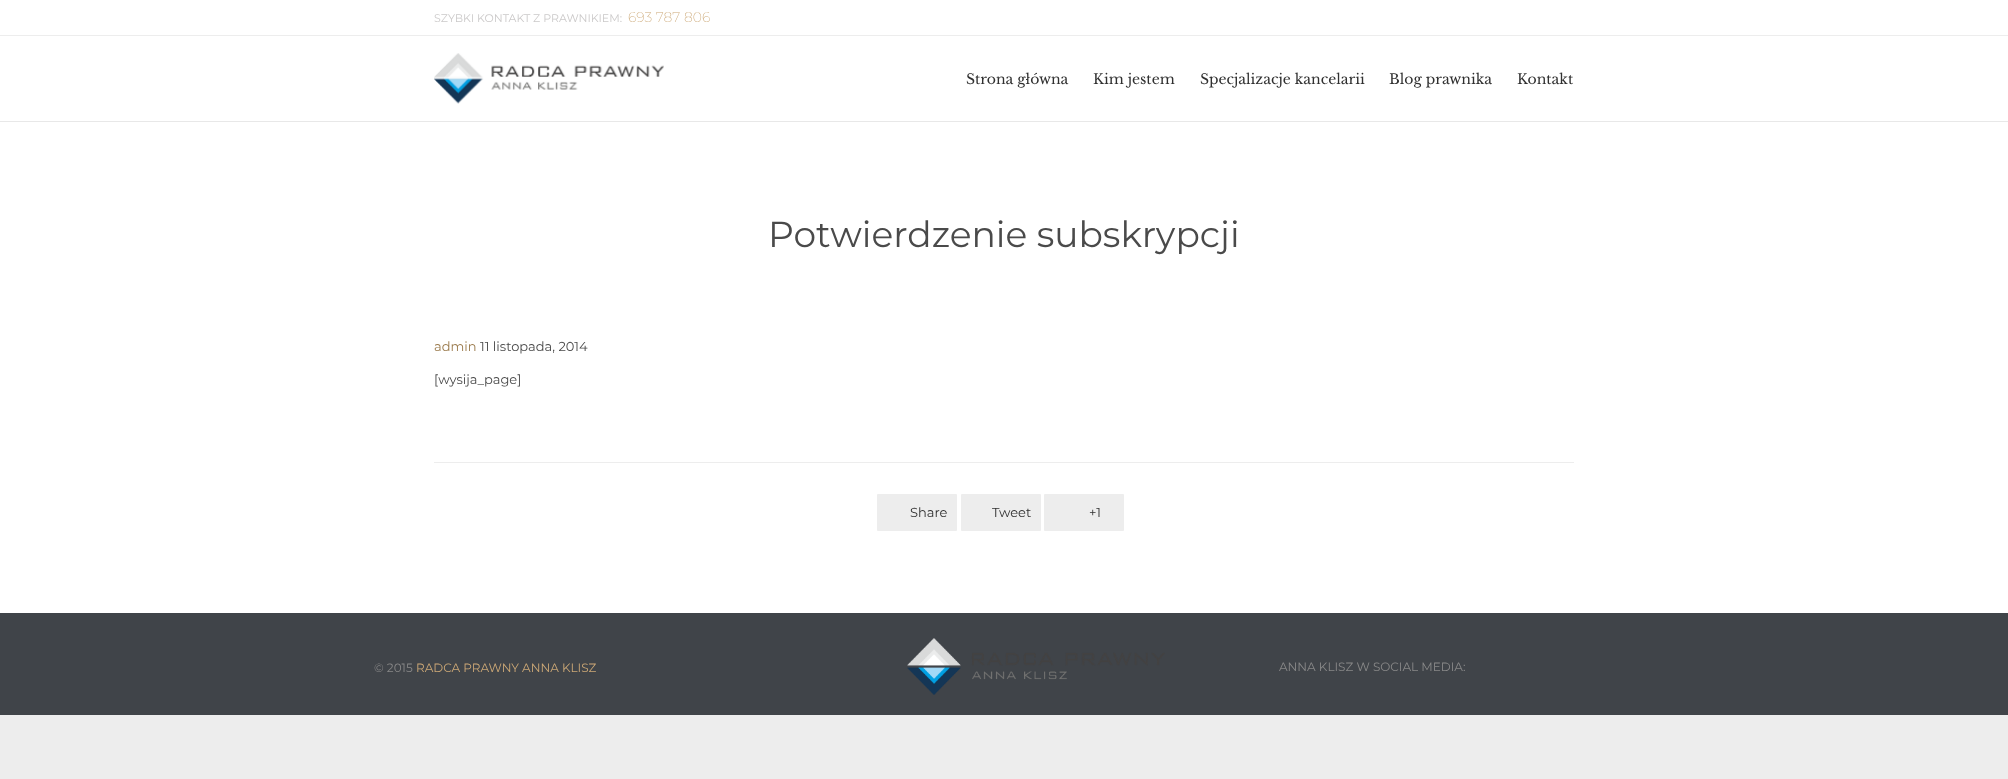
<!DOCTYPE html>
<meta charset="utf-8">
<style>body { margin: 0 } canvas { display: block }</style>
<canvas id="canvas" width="2008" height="779"></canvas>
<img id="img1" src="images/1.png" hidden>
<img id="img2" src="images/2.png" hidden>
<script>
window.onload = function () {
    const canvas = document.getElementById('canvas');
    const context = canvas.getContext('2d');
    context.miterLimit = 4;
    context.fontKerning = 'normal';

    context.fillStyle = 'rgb(237, 237, 237)';
    context.fillRect(0, 0, 2008, 779);
    context.fillStyle = 'rgb(255, 255, 255)';
    context.fillRect(0, 0, 2008, 121);
    context.fillStyle = 'rgb(232, 232, 232)';
    context.fillRect(0, 121, 2008, 1);
    context.fillStyle = 'rgb(237, 237, 237)';
    context.fillRect(0, 35, 2008, 1);
    context.drawImage(document.getElementById('img1'), 434, 53, 230, 51);
    context.fillStyle = 'rgb(255, 255, 255)';
    context.fillRect(0, 122, 2008, 491);
    context.fillStyle = 'rgb(237, 237, 237)';
    context.fillRect(434, 462, 1140, 1);
    context.beginPath();
    context.roundRect(877, 494, 80, 37, 1);
    context.fill();
    context.beginPath();
    context.roundRect(961, 494, 80, 37, 1);
    context.fill();
    context.beginPath();
    context.roundRect(1044, 494, 80, 37, 1);
    context.fill();
    context.fillStyle = 'rgb(64, 68, 73)';
    context.fillRect(0, 613, 2008, 102);
    context.drawImage(document.getElementById('img2'), 907, 638, 258, 57);
    context.font = '11px Montserrat';
    context.fillStyle = 'rgb(203, 201, 201)';
    context.fillText('SZYBKI KONTAKT Z PRAWNIKIEM:', 434, 22);
    context.font = '200 14px Montserrat';
    context.fillStyle = 'rgb(204, 168, 118)';
    context.fillText('693 787 806', 628, 22);
    context.font = '14px Libre Baskerville';
    context.fillStyle = 'rgb(48, 48, 48)';
    context.fillText('Strona główna', 966, 84);
    context.fillText('Kim jestem', 1093, 84);
    context.fillText('Specjalizacje kancelarii', 1200, 84);
    context.fillText('Blog prawnika', 1389, 84);
    context.fillText('Kontakt', 1517, 84);
    context.font = '36px Montserrat';
    context.fillStyle = 'rgb(74, 74, 74)';
    context.fillText('Potwierdzenie subskrypcji', 768, 247);
    context.font = '13px Montserrat';
    context.fillStyle = 'rgb(155, 123, 77)';
    context.fillText('admin', 434, 351);
    context.fillStyle = 'rgb(74, 74, 74)';
    context.fillText('11 listopada, 2014', 480, 351);
    context.fillText('[wysija_page]', 434, 384);
    context.fillStyle = 'rgb(48, 48, 48)';
    context.fillText('Share', 910, 517);
    context.fillText('Tweet', 992, 517);
    context.fillText('+1', 1089, 517);
    context.font = '12px Montserrat';
    context.fillStyle = 'rgb(137, 137, 137)';
    context.fillText('© 2015', 374, 672);
    context.fillStyle = 'rgb(204, 168, 118)';
    context.fillText('RADCA PRAWNY ANNA KLISZ', 416, 672);
    context.fillStyle = 'rgb(137, 137, 137)';
    context.fillText('ANNA KLISZ W SOCIAL MEDIA:', 1279, 671);
};
</script>
